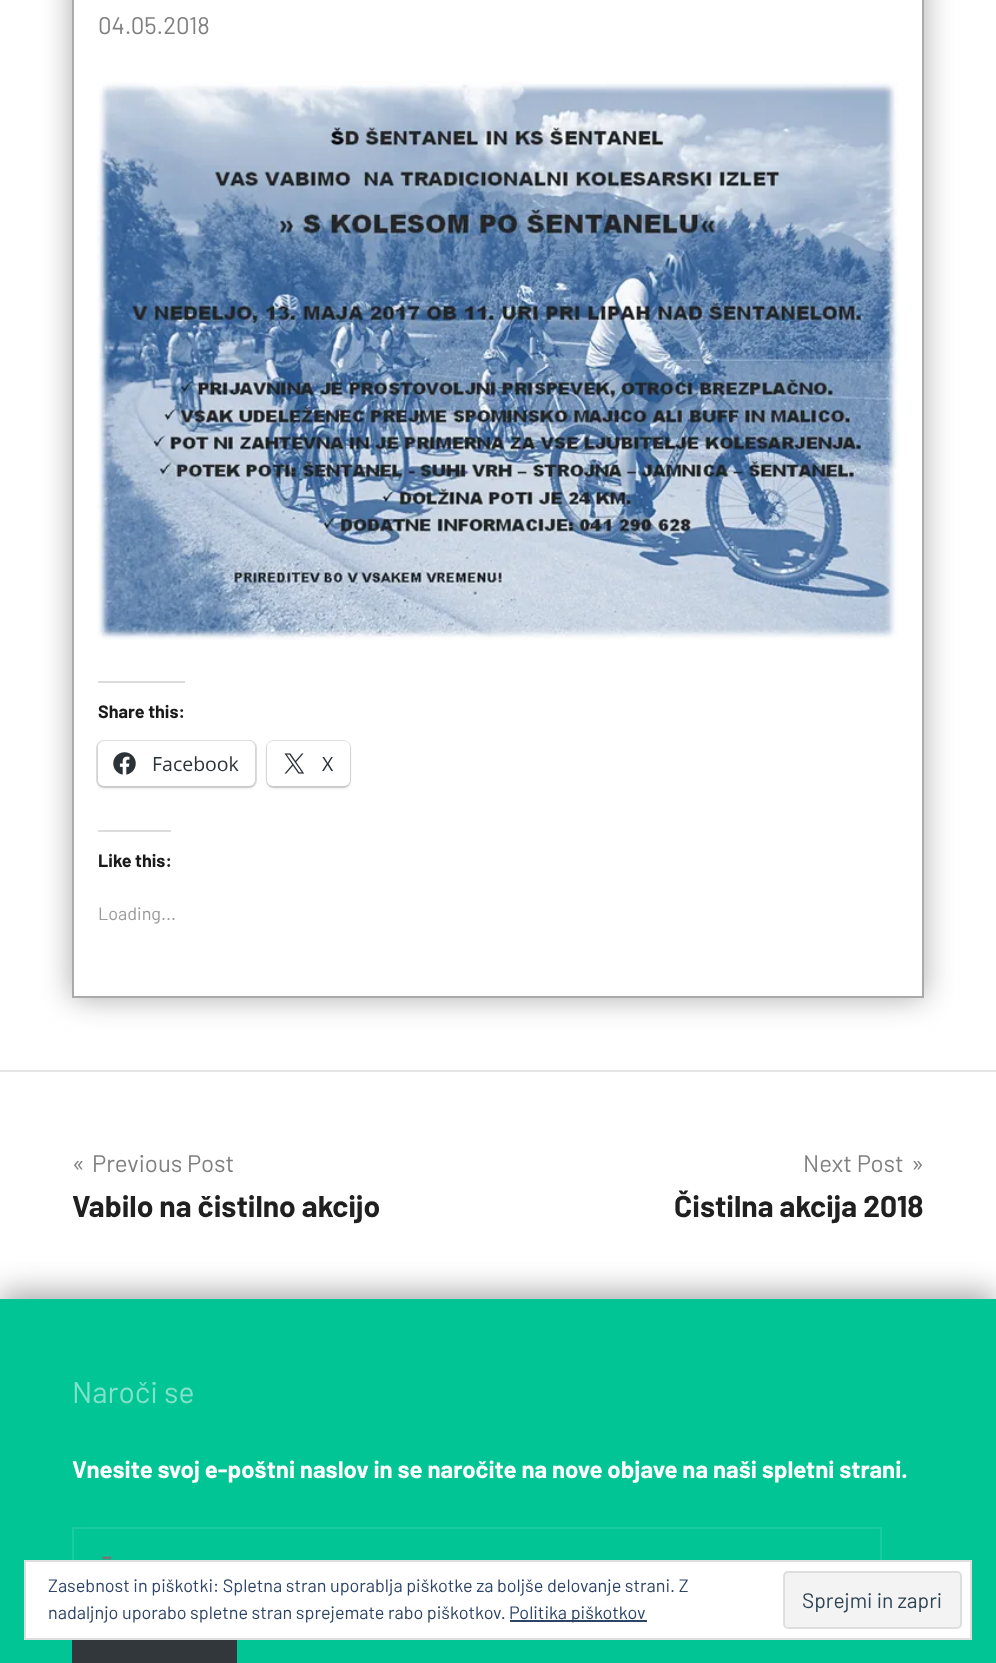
<!DOCTYPE html>
<meta charset="utf-8">
<style>body { margin: 0 } canvas { display: block }</style>
<canvas id="canvas" width="996" height="1663"></canvas>
<img id="img1" src="images/1.png" hidden>
<img id="img2" src="images/2.png" hidden>
<img id="img3" src="images/3.png" hidden>
<script>
window.onload = function () {
    const canvas = document.getElementById('canvas');
    const context = canvas.getContext('2d');
    context.miterLimit = 4;
    context.fontKerning = 'normal';

    context.fillStyle = 'rgb(255, 255, 255)';
    context.fillRect(0, 0, 996, 1663);
    context.save();
    context.beginPath();
    context.moveTo(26, 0);
    context.lineTo(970, 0);
    context.lineTo(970, 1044);
    context.lineTo(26, 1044);
    context.closePath();
    context.moveTo(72, -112);
    context.lineTo(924, -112);
    context.lineTo(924, 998);
    context.lineTo(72, 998);
    context.closePath();
    context.clip('evenodd');
    context.fillStyle = 'rgb(170, 170, 170)';
    context.filter = 'blur(15px)';
    context.beginPath();
    context.rect(72, -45, 852, 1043);
    context.fill();
    context.filter = 'none';
    context.restore();
    context.strokeStyle = 'rgb(170, 170, 170)';
    context.lineWidth = 2;
    context.strokeRect(73, -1, 850, 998);
    context.drawImage(document.getElementById('img1'), 97, 81, 802, 559);
    context.fillStyle = 'rgb(220, 220, 222)';
    context.fillRect(98, 681, 87, 2);
    context.beginPath();
    context.roundRect(97, 741, 159, 46, 7);
    context.strokeStyle = 'rgb(224, 224, 224)';
    context.stroke();
    context.fillStyle = 'rgba(0, 0, 0, 0.12)';
    context.filter = 'blur(1.5px)';
    context.beginPath();
    context.roundRect(98, 743, 157, 45, 6);
    context.fill();
    context.filter = 'none';
    context.fillStyle = 'rgb(255, 255, 255)';
    context.beginPath();
    context.roundRect(98, 741, 157, 45, 6);
    context.fill();
    context.drawImage(document.getElementById('img2'), 113, 752, 23, 23);
    context.beginPath();
    context.roundRect(267, 741, 83, 46, 7);
    context.stroke();
    context.fillStyle = 'rgba(0, 0, 0, 0.12)';
    context.filter = 'blur(1.5px)';
    context.beginPath();
    context.roundRect(267, 743, 83, 45, 6);
    context.fill();
    context.filter = 'none';
    context.fillStyle = 'rgb(255, 255, 255)';
    context.beginPath();
    context.roundRect(267, 741, 83, 45, 6);
    context.fill();
    context.drawImage(document.getElementById('img3'), 284, 753, 21, 21);
    context.fillStyle = 'rgb(220, 220, 222)';
    context.fillRect(98, 830, 73, 2);
    context.fillStyle = 'rgb(230, 230, 230)';
    context.fillRect(0, 1070, 996, 2);
    context.fillStyle = 'rgb(170, 170, 170)';
    context.filter = 'blur(15px)';
    context.beginPath();
    context.rect(0, 1292, 996, 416);
    context.fill();
    context.filter = 'none';
    context.fillStyle = 'rgb(1, 197, 149)';
    context.fillRect(0, 1299, 996, 364);
    context.strokeStyle = 'rgb(26, 203, 160)';
    context.strokeRect(73, 1528, 808, 57);
    context.fillStyle = 'rgb(50, 55, 60)';
    context.fillRect(72, 1640, 165, 23);
    context.fillStyle = 'rgb(255, 255, 255)';
    context.beginPath();
    context.rect(25, 1561, 946, 78);
    context.fill();
    context.strokeStyle = 'rgb(222, 222, 222)';
    context.stroke();
    context.fillStyle = 'rgb(46, 68, 103)';
    context.fillRect(510, 1620, 137, 2);
    context.fillStyle = 'rgb(243, 243, 243)';
    context.beginPath();
    context.roundRect(784, 1572, 177, 56, 4);
    context.fill();
    context.stroke();
    context.font = '24px Barlow';
    context.fillStyle = 'rgb(128, 128, 128)';
    context.fillText('04.05.2018', 98, 34);
    context.font = 'bold 18px Barlow';
    context.fillStyle = 'rgb(26, 26, 26)';
    context.fillText('Share this:', 98, 718);
    context.font = '19.5px Open Sans';
    context.fillStyle = 'rgb(44, 51, 56)';
    context.fillText('Facebook', 152, 771);
    context.fillText('X', 322, 771);
    context.font = 'bold 18px Barlow';
    context.fillStyle = 'rgb(26, 26, 26)';
    context.fillText('Like this:', 98, 867);
    context.font = '18px Barlow';
    context.fillStyle = 'rgb(153, 153, 153)';
    context.fillText('Loading...', 98, 920);
    context.font = '24px Barlow';
    context.fillStyle = 'rgb(128, 128, 128)';
    context.fillText('«', 72, 1172);
    context.fillText('Previous Post', 92, 1172);
    context.font = 'bold 30px Barlow';
    context.fillStyle = 'rgb(32, 32, 32)';
    context.fillText('Vabilo na čistilno akcijo', 72, 1217);
    context.font = '24px Barlow';
    context.fillStyle = 'rgb(128, 128, 128)';
    context.fillText('Next Post', 803, 1172);
    context.fillText('»', 911, 1172);
    context.font = 'bold 30px Barlow';
    context.fillStyle = 'rgb(32, 32, 32)';
    context.fillText('Čistilna akcija 2018', 674, 1217);
    context.font = '30px Barlow';
    context.fillStyle = 'rgb(128, 226, 202)';
    context.fillText('Naroči se', 72, 1403);
    context.font = 'bold 24px Barlow';
    context.fillStyle = 'rgb(255, 255, 255)';
    context.fillText('Vnesite svoj e-poštni naslov in se naročite na nove objave na naši spletni strani.', 72, 1478);
    context.fillStyle = 'rgb(117, 117, 117)';
    context.fillText('-', 102, 1565);
    context.font = '18px Barlow';
    context.fillStyle = 'rgb(46, 68, 103)';
    context.fillText('Zasebnost in piškotki: Spletna stran uporablja piškotke za boljše delovanje strani. Z', 48, 1592);
    context.fillText('nadaljnjo uporabo spletne stran sprejemate rabo piškotkov.', 48, 1619);
    context.fillText('Politika piškotkov', 509, 1619);
    context.font = '21px Barlow';
    context.fillStyle = 'rgb(46, 68, 83)';
    context.fillText('Sprejmi in zapri', 802, 1608);
};
</script>
